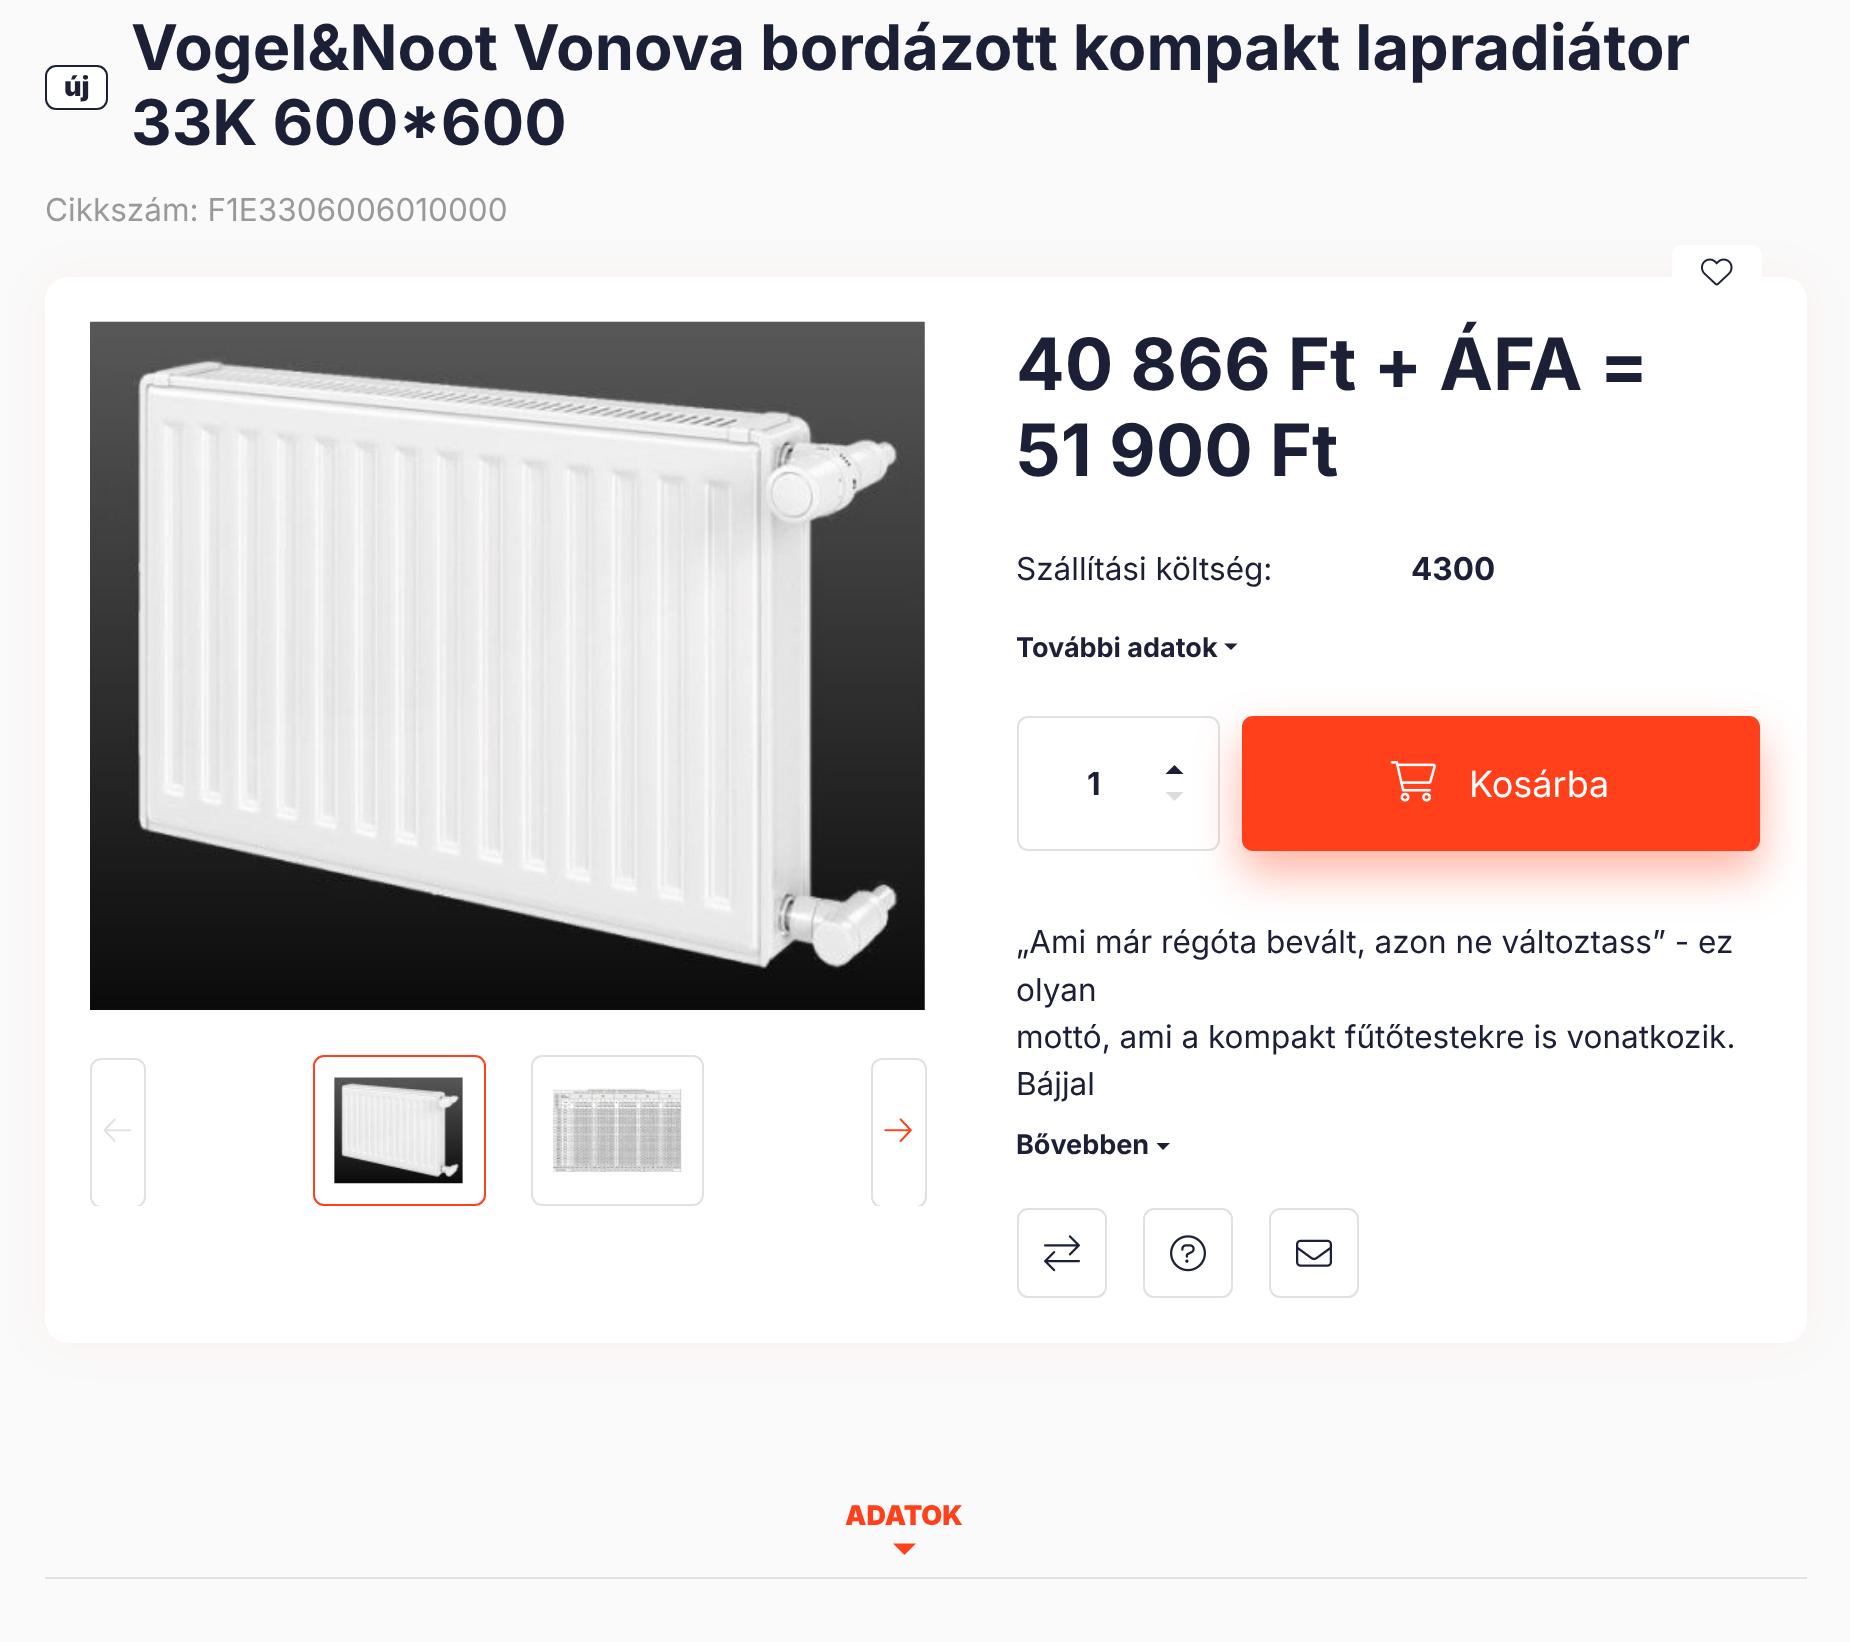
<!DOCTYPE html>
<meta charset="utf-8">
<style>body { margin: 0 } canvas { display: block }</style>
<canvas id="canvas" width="1850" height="1642"></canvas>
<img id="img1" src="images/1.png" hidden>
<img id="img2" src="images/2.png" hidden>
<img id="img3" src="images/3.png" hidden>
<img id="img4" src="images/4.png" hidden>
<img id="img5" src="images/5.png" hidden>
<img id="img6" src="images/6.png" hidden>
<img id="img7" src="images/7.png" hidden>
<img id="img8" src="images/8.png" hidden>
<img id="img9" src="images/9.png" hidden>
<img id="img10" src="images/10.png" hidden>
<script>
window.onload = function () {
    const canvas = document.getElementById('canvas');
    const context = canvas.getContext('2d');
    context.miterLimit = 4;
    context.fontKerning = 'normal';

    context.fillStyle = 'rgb(250, 250, 250)';
    context.fillRect(0, 0, 1850, 1642);
    context.fillStyle = 'rgb(255, 255, 255)';
    context.beginPath();
    context.roundRect(46, 66, 61, 43, 10);
    context.fill();
    context.strokeStyle = 'rgb(27, 32, 54)';
    context.lineWidth = 2;
    context.stroke();
    context.fillStyle = 'rgba(255, 64, 27, 0.05)';
    context.filter = 'blur(22.5px)';
    context.beginPath();
    context.roundRect(45, 277, 1762, 1066, 23);
    context.fill();
    context.filter = 'none';
    context.fillStyle = 'rgb(255, 255, 255)';
    context.beginPath();
    context.roundRect(45, 277, 1762, 1066, 23);
    context.fill();
    context.beginPath();
    context.roundRect(1672, 245, 90, 54, 11);
    context.fill();
    context.drawImage(document.getElementById('img1'), 1701, 258, 32, 28);
    context.drawImage(document.getElementById('img2'), 90, 321, 835, 689);
    context.save();
    context.beginPath();
    context.rect(90, 1055, 837, 151);
    context.clip();
    context.beginPath();
    context.roundRect(91, 1059, 54, 148, 10);
    context.strokeStyle = 'rgb(225, 225, 225)';
    context.stroke();
    context.restore();
    context.drawImage(document.getElementById('img3'), 103, 1118, 28, 24);
    context.beginPath();
    context.roundRect(314, 1056, 171, 149, 10);
    context.strokeStyle = 'rgb(255, 64, 27)';
    context.stroke();
    context.drawImage(document.getElementById('img4'), 334, 1077, 129, 107);
    context.beginPath();
    context.roundRect(532, 1056, 171, 149, 10);
    context.strokeStyle = 'rgb(225, 225, 225)';
    context.stroke();
    context.drawImage(document.getElementById('img5'), 552, 1088, 130, 84);
    context.save();
    context.beginPath();
    context.rect(90, 1055, 837, 151);
    context.clip();
    context.beginPath();
    context.roundRect(872, 1059, 54, 148, 10);
    context.stroke();
    context.restore();
    context.drawImage(document.getElementById('img6'), 884, 1118, 28, 24);
    context.fillStyle = 'rgb(27, 32, 54)';
    context.beginPath();
    context.moveTo(1224, 643.5);
    context.lineTo(1237.5, 643.5);
    context.lineTo(1231, 650);
    context.closePath();
    context.fill();
    context.beginPath();
    context.roundRect(1018, 717, 201, 133, 10);
    context.stroke();
    context.beginPath();
    context.moveTo(1183.5, 774);
    context.lineTo(1165.5, 774);
    context.lineTo(1174.5, 765);
    context.closePath();
    context.fill();
    context.fillStyle = 'rgb(221, 221, 221)';
    context.beginPath();
    context.moveTo(1165.5, 792);
    context.lineTo(1183.5, 792);
    context.lineTo(1174.5, 801);
    context.closePath();
    context.fill();
    context.fillStyle = 'rgba(255, 64, 27, 0.4)';
    context.filter = 'blur(22.5px)';
    context.beginPath();
    context.roundRect(1242, 738, 518, 135, 11);
    context.fill();
    context.filter = 'none';
    context.fillStyle = 'rgb(255, 64, 27)';
    context.beginPath();
    context.roundRect(1242, 716, 518, 135, 11);
    context.fill();
    context.drawImage(document.getElementById('img7'), 1390, 761, 46, 41);
    context.fillStyle = 'rgb(27, 32, 54)';
    context.beginPath();
    context.moveTo(1156.5, 1143);
    context.lineTo(1170, 1143);
    context.lineTo(1163, 1150);
    context.closePath();
    context.fill();
    context.beginPath();
    context.roundRect(1018, 1209, 88, 88, 10);
    context.stroke();
    context.drawImage(document.getElementById('img8'), 1044, 1235, 36, 37);
    context.beginPath();
    context.roundRect(1144, 1209, 88, 88, 10);
    context.stroke();
    context.drawImage(document.getElementById('img9'), 1170, 1235, 36, 37);
    context.beginPath();
    context.roundRect(1270, 1209, 88, 88, 10);
    context.stroke();
    context.drawImage(document.getElementById('img10'), 1296, 1239, 36, 28);
    context.fillStyle = 'rgb(225, 225, 225)';
    context.fillRect(45, 1577, 1762, 2);
    context.fillStyle = 'rgb(255, 64, 27)';
    context.beginPath();
    context.moveTo(893, 1543.5);
    context.lineTo(916, 1543.5);
    context.lineTo(904.5, 1555);
    context.closePath();
    context.fill();
    context.font = '900 27px Inter';
    context.fillStyle = 'rgb(27, 32, 54)';
    context.fillText('új', 64, 96);
    context.font = 'bold 63px Inter';
    context.fillText('Vogel&Noot Vonova bordázott kompakt lapradiátor', 131, 70);
    context.fillText('33K 600*600', 131, 145);
    context.font = '31.5px Inter';
    context.fillStyle = 'rgb(153, 153, 153)';
    context.fillText('Cikkszám: F1E3306006010000', 45, 221);
    context.font = 'bold 72px Inter';
    context.fillStyle = 'rgb(27, 32, 54)';
    context.fillText('40 866 Ft + ÁFA =', 1016, 390);
    context.fillText('51 900 Ft', 1016, 476);
    context.font = '31.5px Inter';
    context.fillText('Szállítási költség:', 1016, 580);
    context.font = 'bold 31.5px Inter';
    context.fillText('4300', 1411, 580);
    context.font = 'bold 27px Inter';
    context.fillText('További adatok', 1016, 657);
    context.font = 'bold 31.5px Inter';
    context.fillText('1', 1087, 795);
    context.font = '36px Inter';
    context.fillStyle = 'rgb(255, 255, 255)';
    context.fillText('Kosárba', 1469, 797);
    context.font = '31.5px Inter';
    context.fillStyle = 'rgb(27, 32, 54)';
    context.fillText('„Ami már régóta bevált, azon ne változtass” - ez', 1016, 953);
    context.fillText('olyan', 1016, 1001);
    context.fillText('mottó, ami a kompakt fűtőtestekre is vonatkozik.', 1016, 1048);
    context.fillText('Bájjal', 1016, 1095);
    context.font = 'bold 27px Inter';
    context.fillText('Bővebben', 1016, 1154);
    context.font = '900 27px Inter';
    context.fillStyle = 'rgb(255, 64, 27)';
    context.fillText('ADATOK', 845, 1525);
};
</script>
